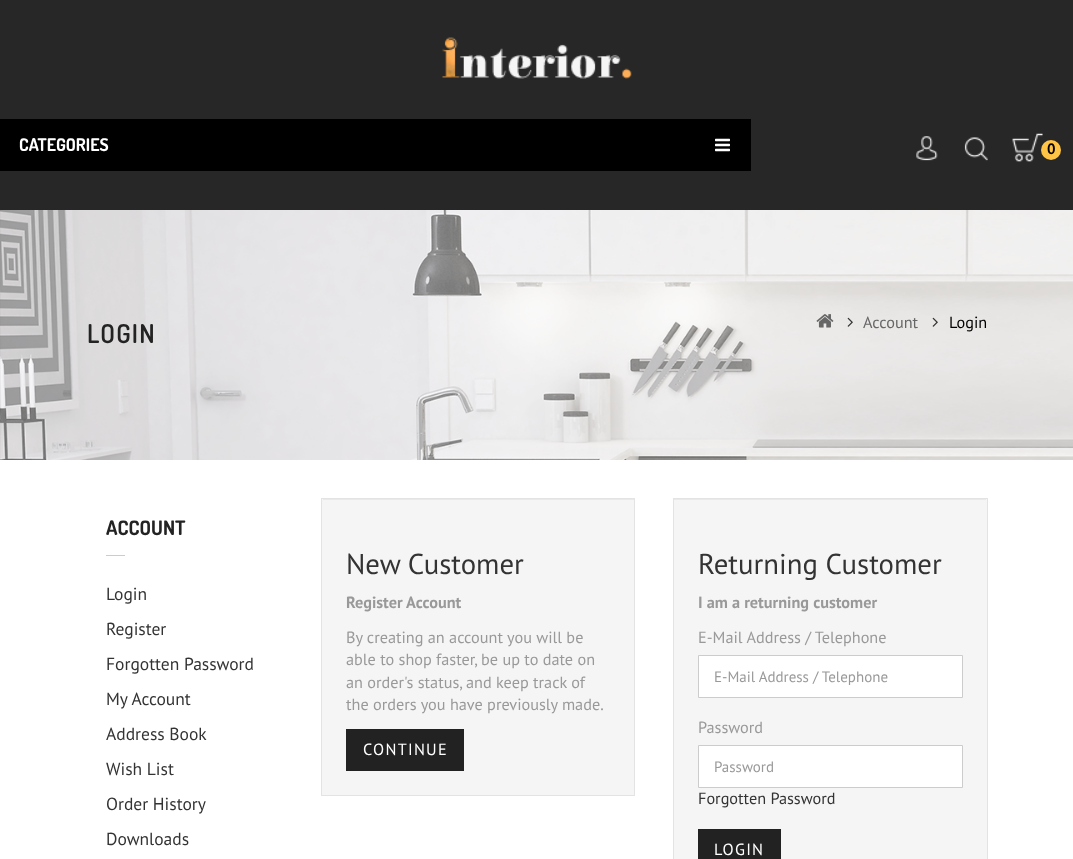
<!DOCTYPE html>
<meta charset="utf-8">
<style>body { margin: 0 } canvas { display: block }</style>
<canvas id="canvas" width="1073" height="859"></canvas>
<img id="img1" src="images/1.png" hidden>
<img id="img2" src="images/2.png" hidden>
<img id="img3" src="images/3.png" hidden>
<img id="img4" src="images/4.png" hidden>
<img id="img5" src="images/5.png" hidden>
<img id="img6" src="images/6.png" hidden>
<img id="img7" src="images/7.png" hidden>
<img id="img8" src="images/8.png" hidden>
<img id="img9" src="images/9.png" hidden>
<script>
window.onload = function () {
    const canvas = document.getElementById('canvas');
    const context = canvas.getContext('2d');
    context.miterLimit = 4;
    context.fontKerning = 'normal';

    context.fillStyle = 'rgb(255, 255, 255)';
    context.fillRect(0, 0, 1073, 859);
    context.fillStyle = 'rgb(39, 39, 39)';
    context.fillRect(0, 0, 1073, 210);
    context.drawImage(document.getElementById('img1'), 442, 37, 190, 42);
    context.fillStyle = 'rgb(0, 0, 0)';
    context.fillRect(0, 119, 751, 52);
    context.drawImage(document.getElementById('img2'), 715, 138, 15, 14);
    context.drawImage(document.getElementById('img3'), 916, 136, 22, 25);
    context.drawImage(document.getElementById('img4'), 964, 137, 24, 24);
    context.drawImage(document.getElementById('img5'), 1012, 133, 31, 29);
    context.fillStyle = 'rgb(255, 196, 70)';
    context.beginPath();
    context.arc(1051, 150, 10, 0, 2 * Math.PI);
    context.fill();
    context.fillStyle = 'rgb(245, 245, 245)';
    context.fillRect(0, 210, 1073, 250);
    context.drawImage(document.getElementById('img6'), 0, 210, 1073, 250);
    context.drawImage(document.getElementById('img7'), 816, 314, 18, 14);
    context.drawImage(document.getElementById('img8'), 847, 317, 6, 10);
    context.drawImage(document.getElementById('img9'), 932, 317, 6, 10);
    context.fillStyle = 'rgb(204, 204, 204)';
    context.fillRect(106, 555, 19, 1);
    context.fillStyle = 'rgb(245, 245, 245)';
    context.fillRect(322, 499, 312, 296);
    context.fillStyle = 'rgb(233, 233, 233)';
    context.fillRect(323, 499, 311, 1);
    context.strokeStyle = 'rgb(227, 227, 227)';
    context.strokeRect(321.5, 498.5, 313, 297);
    context.fillStyle = 'rgb(34, 34, 34)';
    context.fillRect(346, 729, 118, 42);
    context.fillStyle = 'rgb(245, 245, 245)';
    context.fillRect(674, 499, 313, 360);
    context.fillStyle = 'rgb(233, 233, 233)';
    context.fillRect(674, 499, 312, 1);
    context.strokeRect(673.5, 498.5, 314, 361);
    context.fillStyle = 'rgb(255, 255, 255)';
    context.beginPath();
    context.rect(698.5, 655.5, 264, 42);
    context.fill();
    context.strokeStyle = 'rgb(204, 204, 204)';
    context.stroke();
    context.beginPath();
    context.rect(698.5, 745.5, 264, 42);
    context.fill();
    context.stroke();
    context.fillStyle = 'rgb(34, 34, 34)';
    context.fillRect(698, 829, 83, 30);
    context.font = 'bold 17.5px Dosis';
    context.fillStyle = 'rgb(255, 255, 255)';
    context.fillText('CATEGORIES', 19, 151);
    context.font = 'bold 15px PT Sans';
    context.fillStyle = 'rgb(0, 0, 0)';
    context.fillText('0', 1047, 154);
    context.letterSpacing = '1.25px';
    context.font = '600 26px Dosis';
    context.fillStyle = 'rgb(35, 35, 35)';
    context.fillText('LOGIN', 87, 343);
    context.letterSpacing = '0px';
    context.font = '16.25px PT Sans';
    context.fillStyle = 'rgb(102, 102, 102)';
    context.fillText('Account', 863, 328);
    context.fillStyle = 'rgb(0, 0, 0)';
    context.fillText('Login', 949, 328);
    context.font = 'bold 20px Dosis';
    context.fillStyle = 'rgb(35, 35, 35)';
    context.fillText('ACCOUNT', 106, 535);
    context.font = '17.5px PT Sans';
    context.fillStyle = 'rgb(51, 51, 51)';
    context.fillText('Login', 106, 600);
    context.fillText('Register', 106, 635);
    context.fillText('Forgotten Password', 106, 670);
    context.fillText('My Account', 106, 705);
    context.fillText('Address Book', 106, 740);
    context.fillText('Wish List', 106, 775);
    context.fillText('Order History', 106, 810);
    context.fillText('Downloads', 106, 845);
    context.font = '28.75px PT Sans';
    context.fillText('New Customer', 346, 574);
    context.font = 'bold 16.25px PT Sans';
    context.fillStyle = 'rgb(153, 153, 153)';
    context.fillText('Register Account', 346, 608);
    context.font = '16.25px PT Sans';
    context.fillText('By creating an account you will be', 346, 643);
    context.fillText('able to shop faster, be up to date on', 346, 665);
    context.fillText('an order\'s status, and keep track of', 346, 688);
    context.fillText('the orders you have previously made.', 346, 710);
    context.letterSpacing = '1.25px';
    context.fillStyle = 'rgb(255, 255, 255)';
    context.fillText('CONTINUE', 363, 755);
    context.letterSpacing = '0px';
    context.font = '28.75px PT Sans';
    context.fillStyle = 'rgb(51, 51, 51)';
    context.fillText('Returning Customer', 698, 574);
    context.font = 'bold 16.25px PT Sans';
    context.fillStyle = 'rgb(153, 153, 153)';
    context.fillText('I am a returning customer', 698, 608);
    context.font = '16.25px PT Sans';
    context.fillText('E-Mail Address / Telephone', 698, 643);
    context.font = '15px PT Sans';
    context.fillText('E-Mail Address / Telephone', 714, 682);
    context.font = '16.25px PT Sans';
    context.fillText('Password', 698, 733);
    context.font = '15px PT Sans';
    context.fillText('Password', 714, 772);
    context.font = '16.25px PT Sans';
    context.fillStyle = 'rgb(51, 51, 51)';
    context.fillText('Forgotten Password', 698, 804);
    context.letterSpacing = '1.25px';
    context.fillStyle = 'rgb(255, 255, 255)';
    context.fillText('LOGIN', 714, 855);
};
</script>
